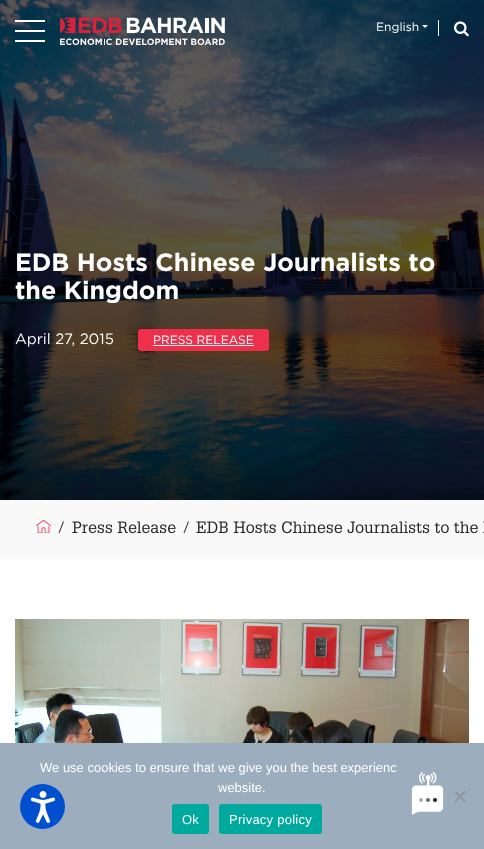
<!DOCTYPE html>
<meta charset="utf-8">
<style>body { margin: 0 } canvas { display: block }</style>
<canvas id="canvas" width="484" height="849"></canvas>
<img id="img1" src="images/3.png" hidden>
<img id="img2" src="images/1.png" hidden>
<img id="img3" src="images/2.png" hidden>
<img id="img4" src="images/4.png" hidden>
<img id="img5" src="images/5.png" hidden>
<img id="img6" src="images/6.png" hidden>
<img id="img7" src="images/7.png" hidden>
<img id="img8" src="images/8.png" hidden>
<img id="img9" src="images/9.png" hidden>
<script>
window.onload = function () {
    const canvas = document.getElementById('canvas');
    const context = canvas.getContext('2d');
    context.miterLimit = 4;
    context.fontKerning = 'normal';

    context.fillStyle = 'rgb(255, 255, 255)';
    context.fillRect(0, 0, 484, 849);
    context.drawImage(document.getElementById('img1'), 0, 0, 484, 500);
    context.fillRect(15, 20, 30, 2);
    context.fillRect(15, 30, 30, 2);
    context.fillRect(15, 40, 30, 2);
    context.drawImage(document.getElementById('img2'), 60, 17, 165, 28);
    context.fillRect(438, 20, 1, 16);
    context.beginPath();
    context.moveTo(422, 25);
    context.lineTo(428, 25);
    context.lineTo(425, 28);
    context.closePath();
    context.fill();
    context.drawImage(document.getElementById('img3'), 454, 21, 15, 16);
    context.fillStyle = 'rgb(239, 48, 76)';
    context.beginPath();
    context.roundRect(138, 329, 131, 22, 3);
    context.fill();
    context.fillStyle = 'rgb(255, 255, 255)';
    context.fillRect(153, 345, 101, 1);
    context.fillStyle = 'rgb(249, 249, 249)';
    context.fillRect(0, 500, 484, 59);
    context.drawImage(document.getElementById('img4'), 36, 520, 15, 13);
    context.fillStyle = 'rgb(37, 37, 37)';
    context.beginPath();
    context.moveTo(63, 521.5);
    context.lineTo(64, 521.5);
    context.lineTo(59.5, 533);
    context.lineTo(58.5, 533);
    context.closePath();
    context.fill();
    context.drawImage(document.getElementById('img5'), 72, 521, 104, 13);
    context.beginPath();
    context.moveTo(188, 521.5);
    context.lineTo(189, 521.5);
    context.lineTo(184.5, 533);
    context.lineTo(183.5, 533);
    context.closePath();
    context.fill();
    context.drawImage(document.getElementById('img6'), 196, 521, 288, 13);
    context.drawImage(document.getElementById('img7'), 15, 619, 454, 124);
    context.fillStyle = 'rgb(156, 174, 189)';
    context.fillRect(0, 743, 484, 106);
    context.fillStyle = 'rgb(142, 151, 159)';
    context.beginPath();
    context.moveTo(464.5, 790.5);
    context.lineTo(466, 792);
    context.lineTo(455.5, 802.5);
    context.lineTo(454, 801);
    context.closePath();
    context.fill();
    context.beginPath();
    context.moveTo(454, 792);
    context.lineTo(455.5, 790.5);
    context.lineTo(466, 801);
    context.lineTo(464.5, 802.5);
    context.closePath();
    context.fill();
    context.fillStyle = 'rgb(0, 169, 157)';
    context.beginPath();
    context.roundRect(172, 804, 37, 30, 3);
    context.fill();
    context.beginPath();
    context.roundRect(219, 804, 103, 30, 3);
    context.fill();
    context.drawImage(document.getElementById('img8'), 399, 766, 56, 49);
    context.fillStyle = 'rgb(0, 79, 206)';
    context.beginPath();
    context.arc(42.5, 806.5, 22.5, 0, 2 * Math.PI);
    context.fill();
    context.drawImage(document.getElementById('img9'), 30, 791, 26, 32);
    context.font = '12px Gotham';
    context.fillStyle = 'rgb(255, 255, 255)';
    context.fillText('English', 376, 31);
    context.font = 'bold 25px Gotham';
    context.fillText('EDB Hosts Chinese Journalists to', 15, 271);
    context.fillText('the Kingdom', 15, 299);
    context.font = '15px Gotham';
    context.fillText('April 27, 2015', 15, 344);
    context.font = '12px Gotham';
    context.fillText('PRESS RELEASE', 153, 344);
    context.font = '13px Liberation Sans';
    context.fillText('We use cookies to ensure that we give you the best experienc', 40, 772);
    context.fillText('website.', 218, 792);
    context.letterSpacing = '0.25px';
    context.fillText('Ok', 182, 824);
    context.fillText('Privacy policy', 229, 824);
};
</script>
